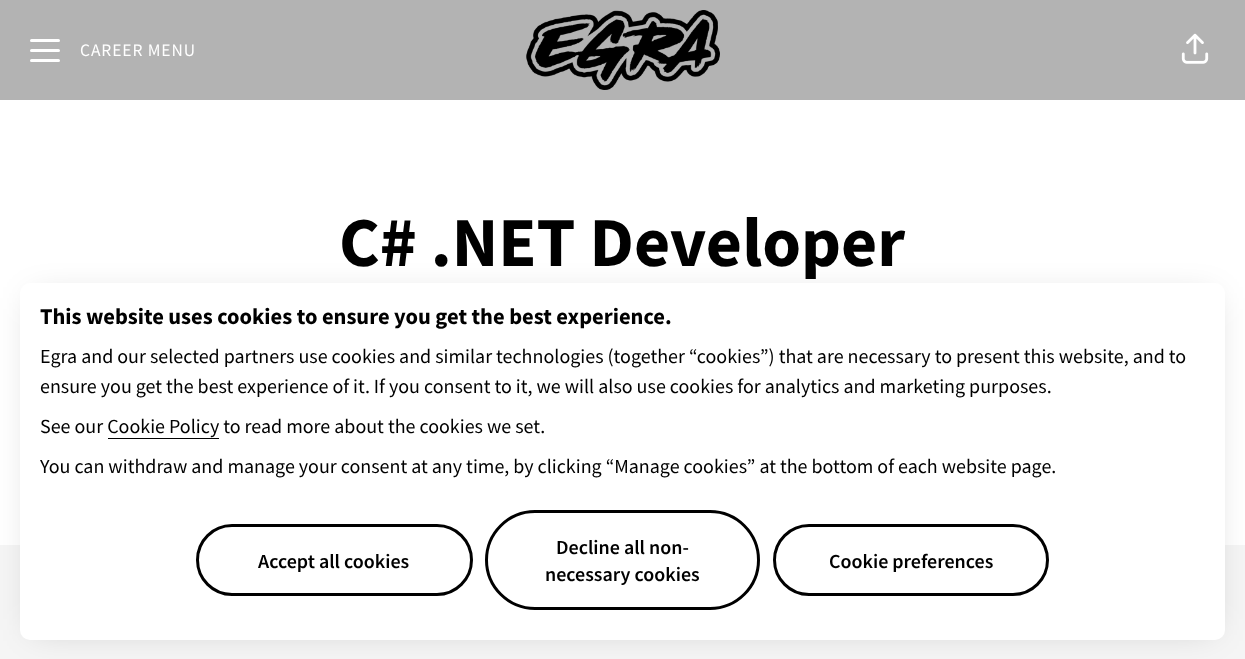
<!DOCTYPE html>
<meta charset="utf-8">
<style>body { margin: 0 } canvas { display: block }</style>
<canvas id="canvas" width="1245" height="659"></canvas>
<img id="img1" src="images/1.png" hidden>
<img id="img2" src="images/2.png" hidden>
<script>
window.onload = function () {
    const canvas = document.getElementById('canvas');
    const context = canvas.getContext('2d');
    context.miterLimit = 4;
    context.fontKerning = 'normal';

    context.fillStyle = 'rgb(255, 255, 255)';
    context.fillRect(0, 0, 1245, 659);
    context.fillStyle = 'rgb(179, 179, 179)';
    context.fillRect(0, 0, 1245, 100);
    context.fillStyle = 'rgb(255, 255, 255)';
    context.beginPath();
    context.roundRect(30, 39, 30, 3, 1.5);
    context.fill();
    context.beginPath();
    context.roundRect(30, 49, 30, 3, 1.5);
    context.fill();
    context.beginPath();
    context.roundRect(30, 59, 30, 3, 1.5);
    context.fill();
    context.drawImage(document.getElementById('img1'), 526, 10, 194, 80);
    context.drawImage(document.getElementById('img2'), 1181, 33, 28, 31);
    context.fillStyle = 'rgb(245, 245, 245)';
    context.fillRect(0, 545, 1245, 114);
    context.fillStyle = 'rgba(0, 0, 0, 0.18)';
    context.filter = 'blur(17px)';
    context.beginPath();
    context.rect(33, 298, 1180, 332);
    context.fill();
    context.filter = 'none';
    context.fillStyle = 'rgb(255, 255, 255)';
    context.beginPath();
    context.roundRect(20, 283, 1205, 357, 10);
    context.fill();
    context.fillStyle = 'rgb(0, 0, 0)';
    context.fillRect(108, 438, 111, 1);
    context.beginPath();
    context.roundRect(197.5, 525.5, 274, 69, 34.5);
    context.strokeStyle = 'rgb(0, 0, 0)';
    context.lineWidth = 3;
    context.stroke();
    context.beginPath();
    context.roundRect(486.5, 511.5, 272, 97, 48.5);
    context.stroke();
    context.beginPath();
    context.roundRect(774.5, 525.5, 273, 69, 34.5);
    context.stroke();
    context.letterSpacing = '0.9px';
    context.font = '17.5px Source Sans Pro';
    context.fillStyle = 'rgb(255, 255, 255)';
    context.fillText('CAREER MENU', 80, 56);
    context.letterSpacing = '0px';
    context.font = 'bold 70px Source Sans Pro';
    context.fillStyle = 'rgb(0, 0, 0)';
    context.fillText('C# .NET Developer', 339, 266);
    context.font = 'bold 22.5px Source Sans Pro';
    context.fillText('This website uses cookies to ensure you get the best experience.', 40, 324);
    context.font = '20px Source Sans Pro';
    context.fillText('Egra and our selected partners use cookies and similar technologies (together “cookies”) that are necessary to present this website, and to', 40, 363);
    context.fillText('ensure you get the best experience of it. If you consent to it, we will also use cookies for analytics and marketing purposes.', 40, 393);
    context.fillText('See our Cookie Policy to read more about the cookies we set.', 40, 433);
    context.fillText('You can withdraw and manage your consent at any time, by clicking “Manage cookies” at the bottom of each website page.', 40, 473);
    context.font = '600 20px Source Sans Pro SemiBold';
    context.fillText('Accept all cookies', 258, 568);
    context.fillText('Decline all non-', 556, 554);
    context.fillText('necessary cookies', 545, 581);
    context.fillText('Cookie preferences', 829, 568);
};
</script>
